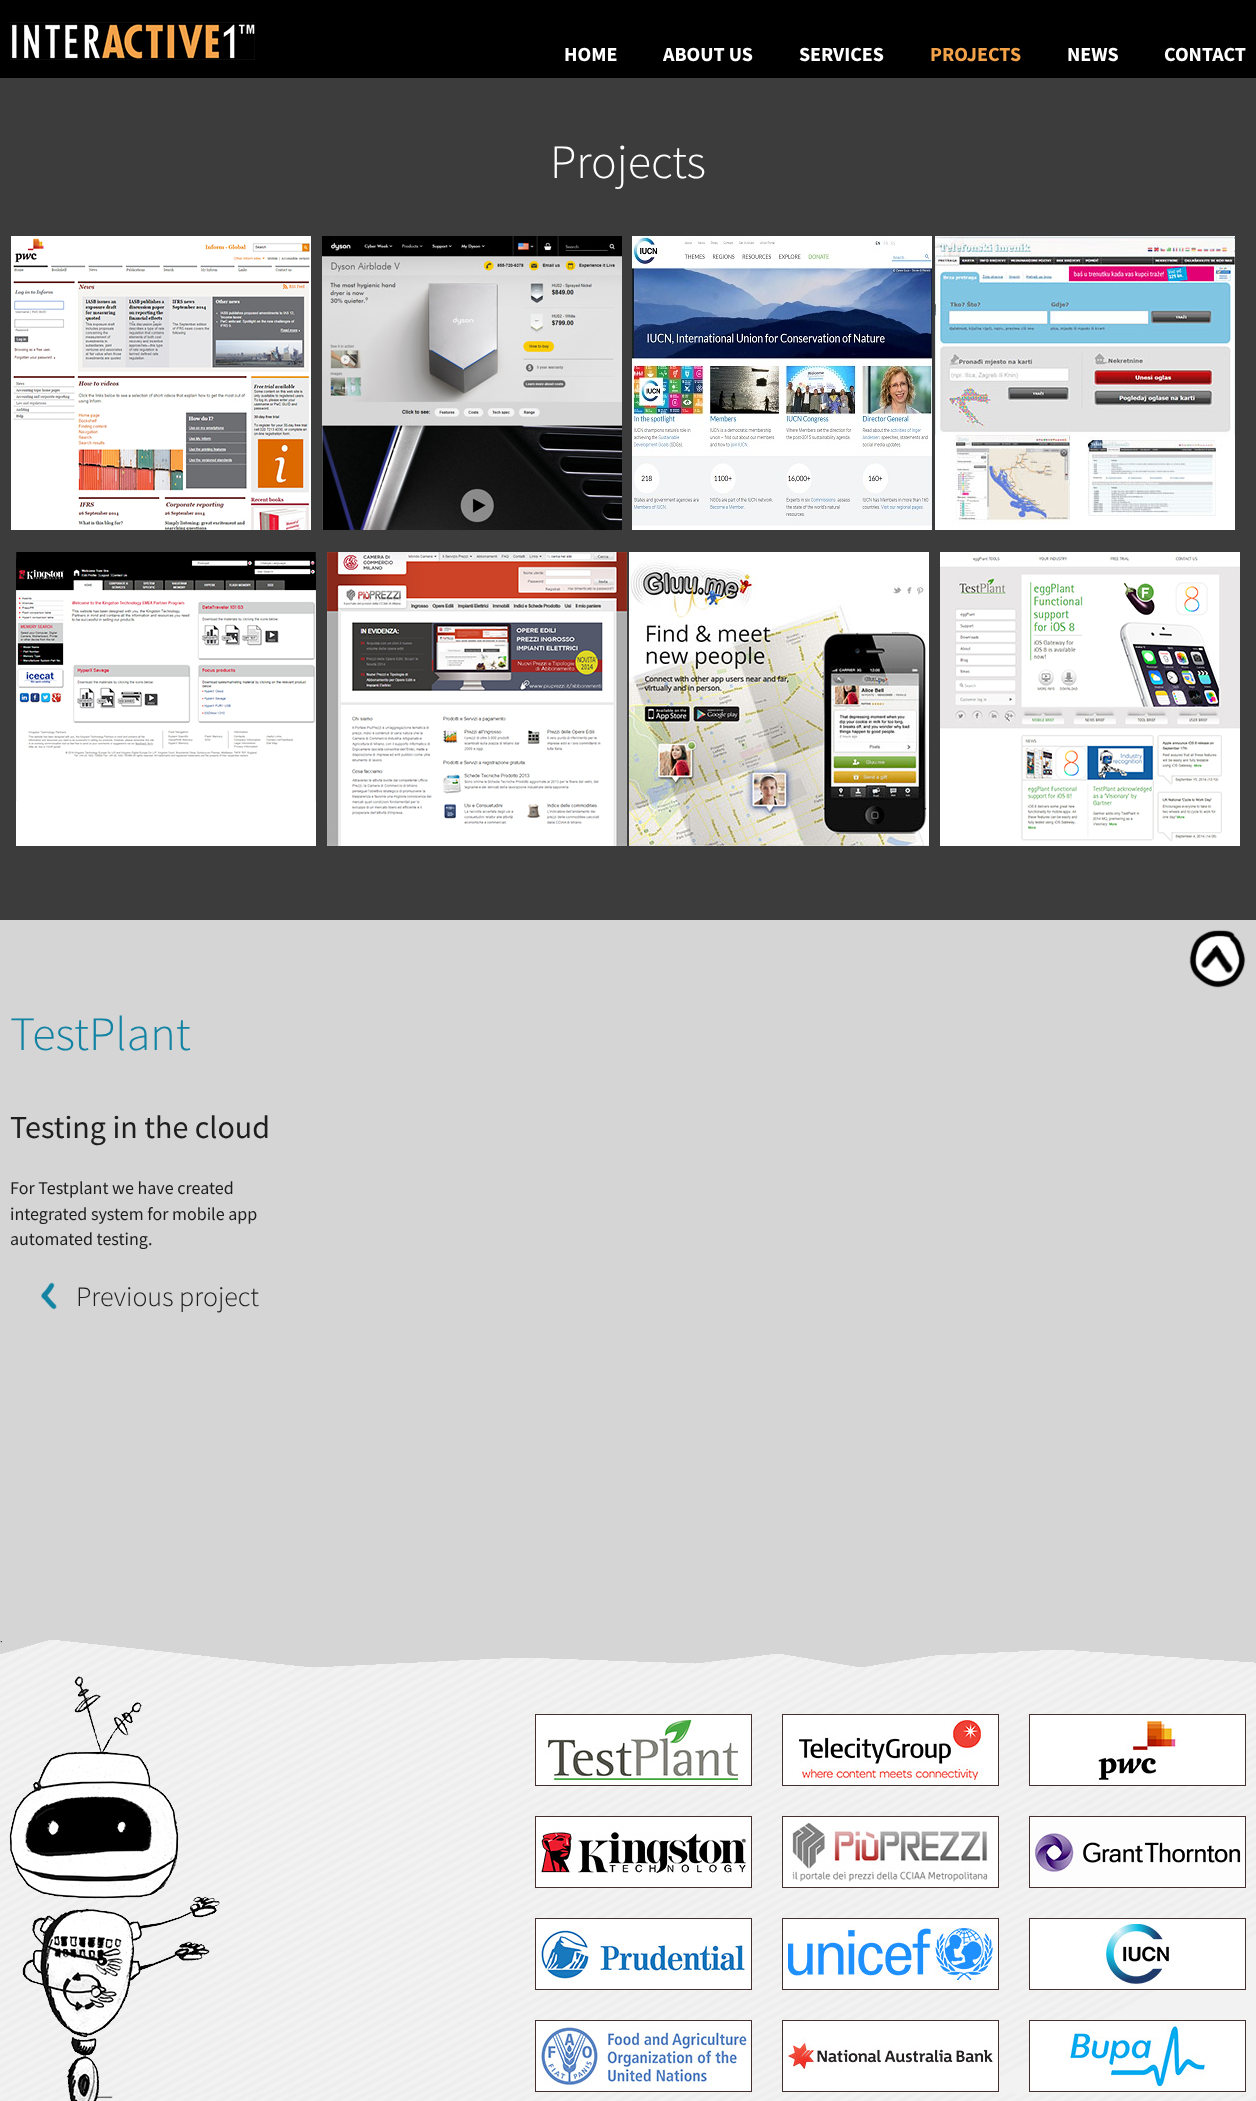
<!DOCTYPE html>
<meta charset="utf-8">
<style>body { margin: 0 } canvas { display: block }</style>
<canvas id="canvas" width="1256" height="2101"></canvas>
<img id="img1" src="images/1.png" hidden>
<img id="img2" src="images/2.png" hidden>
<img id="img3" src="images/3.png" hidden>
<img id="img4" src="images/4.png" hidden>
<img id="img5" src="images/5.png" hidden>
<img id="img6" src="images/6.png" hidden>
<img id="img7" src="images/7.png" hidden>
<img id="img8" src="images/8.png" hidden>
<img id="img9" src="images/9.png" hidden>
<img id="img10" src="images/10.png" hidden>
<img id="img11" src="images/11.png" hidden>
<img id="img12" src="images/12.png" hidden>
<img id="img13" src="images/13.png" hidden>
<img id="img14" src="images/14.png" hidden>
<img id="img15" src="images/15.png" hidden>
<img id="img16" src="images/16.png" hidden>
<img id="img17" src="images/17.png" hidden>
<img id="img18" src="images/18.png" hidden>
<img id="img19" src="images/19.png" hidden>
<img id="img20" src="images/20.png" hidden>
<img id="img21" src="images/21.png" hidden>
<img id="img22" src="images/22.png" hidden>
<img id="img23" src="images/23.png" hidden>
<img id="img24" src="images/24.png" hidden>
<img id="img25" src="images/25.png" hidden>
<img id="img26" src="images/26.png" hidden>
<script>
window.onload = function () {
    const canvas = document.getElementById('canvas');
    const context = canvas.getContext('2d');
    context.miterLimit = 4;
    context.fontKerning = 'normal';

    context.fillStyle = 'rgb(255, 255, 255)';
    context.fillRect(0, 0, 1256, 2101);
    context.drawImage(document.getElementById('img1'), 0, 1640, 1256, 461);
    context.fillStyle = 'rgb(0, 0, 0)';
    context.fillRect(0, 0, 1256, 78);
    context.drawImage(document.getElementById('img2'), 10, 22, 245, 38);
    context.fillStyle = 'rgb(60, 60, 60)';
    context.fillRect(0, 78, 1256, 842);
    context.drawImage(document.getElementById('img3'), 11, 236, 300, 294);
    context.drawImage(document.getElementById('img4'), 322, 236, 300, 294);
    context.drawImage(document.getElementById('img5'), 632, 236, 300, 294);
    context.drawImage(document.getElementById('img6'), 935, 236, 300, 294);
    context.drawImage(document.getElementById('img7'), 16, 552, 300, 294);
    context.drawImage(document.getElementById('img8'), 327, 552, 300, 294);
    context.drawImage(document.getElementById('img9'), 629, 552, 300, 294);
    context.drawImage(document.getElementById('img10'), 940, 552, 300, 294);
    context.fillStyle = 'rgb(213, 213, 213)';
    context.fillRect(0, 920, 1256, 714);
    context.drawImage(document.getElementById('img11'), 1189, 930, 57, 58);
    context.drawImage(document.getElementById('img12'), 41, 1282, 16, 28);
    context.drawImage(document.getElementById('img13'), 0, 1634, 1256, 34);
    context.drawImage(document.getElementById('img14'), 9, 1676, 211, 425);
    context.strokeStyle = 'rgb(70, 47, 47)';
    context.strokeRect(535.5, 1714.5, 216, 71);
    context.drawImage(document.getElementById('img15'), 536, 1715, 215, 70);
    context.strokeRect(782.5, 1714.5, 216, 71);
    context.drawImage(document.getElementById('img16'), 783, 1715, 215, 70);
    context.strokeRect(1029.5, 1714.5, 216, 71);
    context.drawImage(document.getElementById('img17'), 1030, 1715, 215, 70);
    context.strokeRect(535.5, 1816.5, 216, 71);
    context.drawImage(document.getElementById('img18'), 536, 1817, 215, 70);
    context.strokeRect(782.5, 1816.5, 216, 71);
    context.drawImage(document.getElementById('img19'), 783, 1817, 215, 70);
    context.strokeRect(1029.5, 1816.5, 216, 71);
    context.drawImage(document.getElementById('img20'), 1030, 1817, 215, 70);
    context.strokeRect(535.5, 1918.5, 216, 71);
    context.drawImage(document.getElementById('img21'), 536, 1919, 215, 70);
    context.strokeRect(782.5, 1918.5, 216, 71);
    context.drawImage(document.getElementById('img22'), 783, 1919, 215, 70);
    context.strokeRect(1029.5, 1918.5, 216, 71);
    context.drawImage(document.getElementById('img23'), 1030, 1919, 215, 70);
    context.strokeRect(535.5, 2020.5, 216, 71);
    context.drawImage(document.getElementById('img24'), 536, 2021, 215, 70);
    context.strokeRect(782.5, 2020.5, 216, 71);
    context.drawImage(document.getElementById('img25'), 783, 2021, 215, 70);
    context.strokeRect(1029.5, 2020.5, 216, 71);
    context.drawImage(document.getElementById('img26'), 1030, 2021, 215, 70);
    context.font = 'bold 20px Source Sans Pro';
    context.fillStyle = 'rgb(255, 255, 255)';
    context.fillText('HOME', 564, 61);
    context.fillText('ABOUT US', 663, 61);
    context.fillText('SERVICES', 799, 61);
    context.fillStyle = 'rgb(244, 162, 73)';
    context.fillText('PROJECTS', 930, 61);
    context.fillStyle = 'rgb(255, 255, 255)';
    context.fillText('NEWS', 1067, 61);
    context.fillText('CONTACT', 1164, 61);
    context.font = '300 48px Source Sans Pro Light';
    context.fillText('Projects', 550, 178);
    context.fillStyle = 'rgb(19, 131, 163)';
    context.fillText('TestPlant', 10, 1050);
    context.font = '32px Source Sans Pro';
    context.fillStyle = 'rgb(30, 30, 30)';
    context.fillText('Testing in the cloud', 10, 1138);
    context.font = '18px Source Sans Pro';
    context.fillText('For Testplant we have created', 10, 1194);
    context.fillText('integrated system for mobile app', 10, 1220);
    context.fillText('automated testing.', 10, 1245);
    context.font = '300 28px Source Sans Pro Light';
    context.fillText('Previous project', 76, 1306);
    context.font = '10px Liberation Serif';
    context.fillStyle = 'rgb(0, 0, 0)';
    context.fillText('.', 0, 1642);
};
</script>
